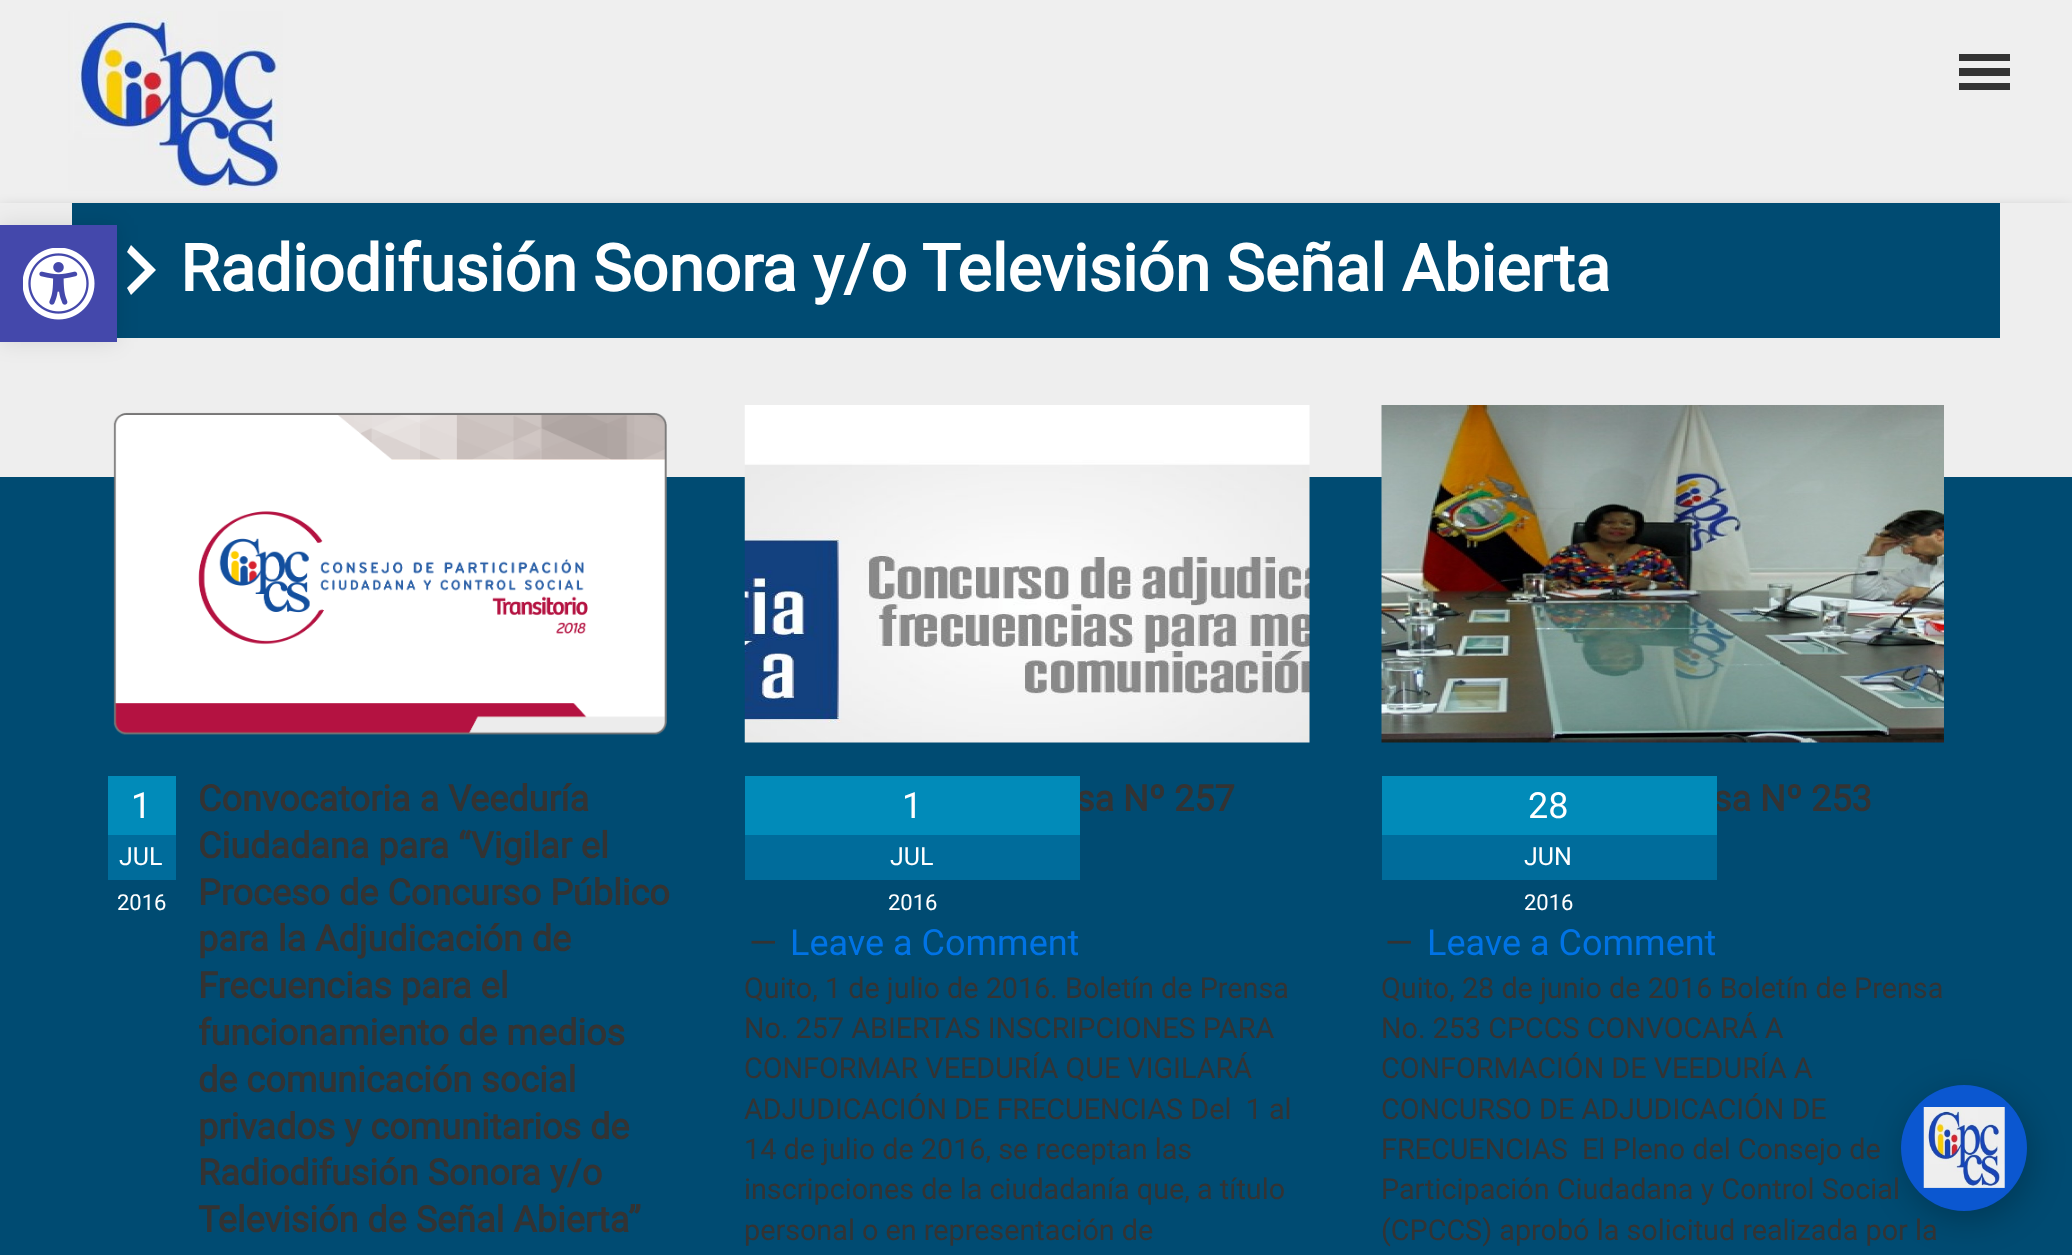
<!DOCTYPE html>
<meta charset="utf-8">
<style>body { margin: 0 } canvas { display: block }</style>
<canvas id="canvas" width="2072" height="1255"></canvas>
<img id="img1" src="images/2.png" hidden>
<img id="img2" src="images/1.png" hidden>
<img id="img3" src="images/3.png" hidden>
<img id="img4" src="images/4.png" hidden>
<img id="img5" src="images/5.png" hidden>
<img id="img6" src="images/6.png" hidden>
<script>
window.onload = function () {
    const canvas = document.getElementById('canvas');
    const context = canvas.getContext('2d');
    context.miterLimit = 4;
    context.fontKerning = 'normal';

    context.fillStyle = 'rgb(255, 255, 255)';
    context.fillRect(0, 0, 2072, 1255);
    context.save();
    context.beginPath();
    context.moveTo(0, 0);
    context.lineTo(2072, 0);
    context.lineTo(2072, 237);
    context.lineTo(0, 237);
    context.closePath();
    context.moveTo(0, 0);
    context.lineTo(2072, 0);
    context.lineTo(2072, 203);
    context.lineTo(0, 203);
    context.closePath();
    context.clip('evenodd');
    context.fillStyle = 'rgba(0, 0, 0, 0.6)';
    context.filter = 'blur(11px)';
    context.beginPath();
    context.rect(0, 0, 2072, 203);
    context.fill();
    context.filter = 'none';
    context.restore();
    context.fillStyle = 'rgba(239, 239, 239, 0.99)';
    context.fillRect(0, 0, 2072, 203);
    context.drawImage(document.getElementById('img1'), 68, 11, 215, 180);
    context.fillStyle = 'rgba(0, 0, 0, 0.5)';
    context.filter = 'blur(9px)';
    context.beginPath();
    context.rect(0, 214, 2072, 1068);
    context.fill();
    context.filter = 'none';
    context.fillStyle = 'rgb(238, 238, 238)';
    context.fillRect(0, 203, 2072, 274);
    context.fillStyle = 'rgb(0, 75, 114)';
    context.fillRect(72, 203, 1928, 135);
    context.fillStyle = 'rgb(255, 255, 255)';
    context.beginPath();
    context.moveTo(127, 288);
    context.lineTo(145, 270);
    context.lineTo(127, 252);
    context.lineTo(131, 245);
    context.lineTo(156, 270);
    context.lineTo(131, 295);
    context.closePath();
    context.fill();
    context.fillStyle = 'rgba(0, 0, 0, 0.1)';
    context.filter = 'blur(11px)';
    context.beginPath();
    context.rect(0, 225, 117, 117);
    context.fill();
    context.filter = 'none';
    context.fillStyle = 'rgb(68, 72, 171)';
    context.fillRect(0, 225, 117, 117);
    context.drawImage(document.getElementById('img2'), 23, 248, 72, 72);
    context.fillStyle = 'rgb(51, 51, 51)';
    context.beginPath();
    context.moveTo(1959, 90);
    context.lineTo(2010, 90);
    context.lineTo(2010, 83);
    context.lineTo(1959, 83);
    context.closePath();
    context.moveTo(1959, 54);
    context.lineTo(1959, 61);
    context.lineTo(2010, 61);
    context.lineTo(2010, 54);
    context.closePath();
    context.moveTo(1959, 76);
    context.lineTo(2010, 76);
    context.lineTo(2010, 68);
    context.lineTo(1959, 68);
    context.closePath();
    context.fill();
    context.fillStyle = 'rgb(0, 75, 114)';
    context.fillRect(0, 477, 2072, 778);
    context.drawImage(document.getElementById('img3'), 113, 412, 554, 323);
    context.fillStyle = 'rgb(1, 139, 185)';
    context.fillRect(108, 776, 68, 59);
    context.fillStyle = 'rgb(0, 108, 155)';
    context.fillRect(108, 835, 68, 45);
    context.fillRect(745, 835, 335, 45);
    context.drawImage(document.getElementById('img4'), 744, 405, 566, 338);
    context.fillRect(1382, 835, 335, 45);
    context.drawImage(document.getElementById('img5'), 1381, 405, 563, 338);
    context.fillStyle = 'rgba(0, 0, 0, 0.24)';
    context.filter = 'blur(17px)';
    context.beginPath();
    context.roundRect(1904, 1094, 126, 126, 63);
    context.fill();
    context.filter = 'none';
    context.fillStyle = 'rgb(11, 87, 208)';
    context.beginPath();
    context.arc(1964, 1148, 63, 0, 2 * Math.PI);
    context.fill();
    context.drawImage(document.getElementById('img6'), 1923, 1107, 82, 81);
    context.wordSpacing = '-0.25px';
    context.font = 'bold 64.8px Roboto';
    context.fillStyle = 'rgb(255, 255, 255)';
    context.fillText('Radiodifusión Sonora y/o Televisión Señal Abierta', 180, 291);
    context.wordSpacing = '0px';
    context.font = '36px Roboto';
    context.fillText('1', 131, 818);
    context.font = '25px Roboto';
    context.fillText('JUL', 119, 865);
    context.font = '22px Roboto';
    context.fillText('2016', 117, 910);
    context.font = 'bold 36px Roboto';
    context.fillStyle = 'rgb(51, 51, 51)';
    context.fillText('Convocatoria a Veeduría', 198, 811);
    context.fillText('Ciudadana para “Vigilar el', 198, 858);
    context.fillText('Proceso de Concurso Público', 198, 905);
    context.fillText('para la Adjudicación de', 198, 951);
    context.fillText('Frecuencias para el', 198, 998);
    context.fillText('funcionamiento de medios', 198, 1045);
    context.fillText('de comunicación social', 198, 1092);
    context.fillText('privados y comunitarios de', 198, 1139);
    context.fillText('Radiodifusión Sonora y/o', 198, 1185);
    context.fillText('Televisión de Señal Abierta”', 198, 1232);
    context.font = '25px Roboto';
    context.fillStyle = 'rgb(255, 255, 255)';
    context.fillText('JUL', 890, 865);
    context.font = '22px Roboto';
    context.fillText('2016', 888, 910);
    context.font = '36px Roboto';
    context.fillStyle = 'rgb(51, 51, 51)';
    context.fillText('—', 749, 955);
    context.fillStyle = 'rgb(0, 115, 229)';
    context.fillText('Leave a Comment', 790, 955);
    context.font = 'bold 36px Roboto';
    context.fillStyle = 'rgb(51, 51, 51)';
    context.fillText('sa Nº 257', 1076, 811);
    context.fillStyle = 'rgb(1, 139, 185)';
    context.fillRect(745, 776, 335, 59);
    context.font = '36px Roboto';
    context.fillStyle = 'rgb(255, 255, 255)';
    context.fillText('1', 902, 818);
    context.font = '28.75px Roboto';
    context.fillStyle = 'rgb(51, 51, 51)';
    context.fillText('Quito, 1 de julio de 2016. Boletín de Prensa', 744, 998);
    context.fillText('No. 257 ABIERTAS INSCRIPCIONES PARA', 744, 1038);
    context.fillText('CONFORMAR VEEDURÍA QUE VIGILARÁ', 744, 1078);
    context.fillText('ADJUDICACIÓN DE FRECUENCIAS Del  1 al', 744, 1119);
    context.fillText('14 de julio de 2016, se receptan las', 744, 1159);
    context.fillText('inscripciones de la ciudadanía que, a título', 744, 1199);
    context.fillText('personal o en representación de', 744, 1240);
    context.font = '25px Roboto';
    context.fillStyle = 'rgb(255, 255, 255)';
    context.fillText('JUN', 1524, 865);
    context.font = '22px Roboto';
    context.fillText('2016', 1524, 910);
    context.font = '36px Roboto';
    context.fillStyle = 'rgb(51, 51, 51)';
    context.fillText('—', 1385, 955);
    context.fillStyle = 'rgb(0, 115, 229)';
    context.fillText('Leave a Comment', 1427, 955);
    context.font = 'bold 36px Roboto';
    context.fillStyle = 'rgb(51, 51, 51)';
    context.fillText('sa Nº 253', 1713, 811);
    context.fillStyle = 'rgb(1, 139, 185)';
    context.fillRect(1382, 776, 335, 59);
    context.font = '36px Roboto';
    context.fillStyle = 'rgb(255, 255, 255)';
    context.fillText('28', 1528, 818);
    context.font = '28.75px Roboto';
    context.fillStyle = 'rgb(51, 51, 51)';
    context.fillText('Quito, 28 de junio de 2016 Boletín de Prensa', 1381, 998);
    context.fillText('No. 253 CPCCS CONVOCARÁ A', 1381, 1038);
    context.fillText('CONFORMACIÓN DE VEEDURÍA A', 1381, 1078);
    context.fillText('CONCURSO DE ADJUDICACIÓN DE', 1381, 1119);
    context.fillText('FRECUENCIAS  El Pleno del Consejo de', 1381, 1159);
    context.fillText('Participación Ciudadana y Control Social', 1381, 1199);
    context.fillText('(CPCCS) aprobó la solicitud realizada por la', 1381, 1240);
};
</script>
